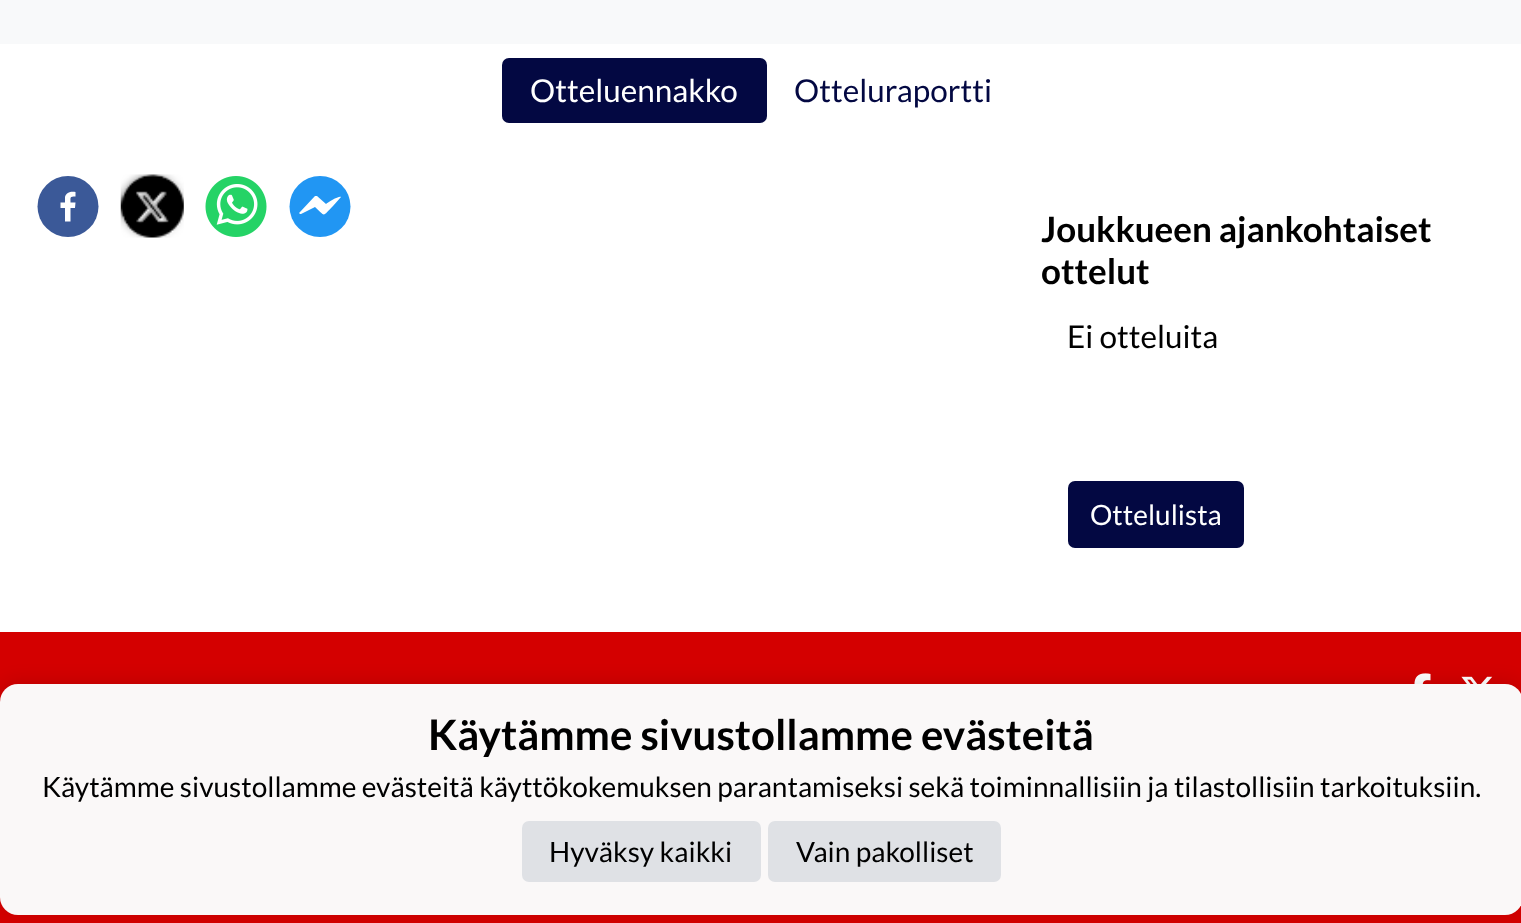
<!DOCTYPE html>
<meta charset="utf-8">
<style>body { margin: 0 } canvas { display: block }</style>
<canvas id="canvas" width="1521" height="923"></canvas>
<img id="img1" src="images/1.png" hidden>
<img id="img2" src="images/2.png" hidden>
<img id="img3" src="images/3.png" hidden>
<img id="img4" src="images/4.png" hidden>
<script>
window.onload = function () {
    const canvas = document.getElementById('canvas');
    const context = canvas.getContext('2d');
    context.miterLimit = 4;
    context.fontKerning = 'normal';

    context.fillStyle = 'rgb(255, 255, 255)';
    context.fillRect(0, 0, 1521, 923);
    context.fillStyle = 'rgb(248, 249, 250)';
    context.fillRect(0, 0, 1521, 44);
    context.fillStyle = 'rgb(3, 8, 66)';
    context.beginPath();
    context.roundRect(502, 58, 265, 65, 7);
    context.fill();
    context.fillStyle = 'rgb(59, 89, 152)';
    context.beginPath();
    context.arc(68, 206.5, 30.5, 0, 2 * Math.PI);
    context.fill();
    context.fillStyle = 'rgb(255, 255, 255)';
    context.beginPath();
    context.moveTo(70.5, 221.5);
    context.lineTo(70.5, 208);
    context.lineTo(75, 208);
    context.lineTo(75.5, 202.5);
    context.lineTo(70.5, 202.5);
    context.bezierCurveTo(70.5, 197, 69.5, 196.5, 75.5, 196.5);
    context.lineTo(75.5, 192);
    context.bezierCurveTo(71.5, 191, 66, 192, 65, 197);
    context.lineTo(65, 202.5);
    context.lineTo(60.5, 202.5);
    context.lineTo(60.5, 208);
    context.lineTo(65, 208);
    context.lineTo(65, 221.5);
    context.closePath();
    context.fill();
    context.drawImage(document.getElementById('img1'), 120, 174, 64, 64);
    context.drawImage(document.getElementById('img2'), 205, 176, 62, 61);
    context.fillStyle = 'rgb(33, 150, 243)';
    context.beginPath();
    context.arc(320, 206.5, 30.5, 0, 2 * Math.PI);
    context.fill();
    context.fillStyle = 'rgb(255, 255, 255)';
    context.beginPath();
    context.moveTo(341, 197);
    context.bezierCurveTo(340, 195, 328, 202, 326, 204);
    context.lineTo(317, 196);
    context.bezierCurveTo(317, 196, 316, 196, 315, 196);
    context.lineTo(300, 212);
    context.bezierCurveTo(299, 213, 299, 213, 300, 214);
    context.lineTo(301, 214);
    context.lineTo(315, 207);
    context.bezierCurveTo(326, 217, 322, 217, 333, 206);
    context.closePath();
    context.fill();
    context.fillStyle = 'rgb(3, 8, 66)';
    context.beginPath();
    context.roundRect(1068, 481, 176, 67, 7);
    context.fill();
    context.fillStyle = 'rgb(212, 0, 0)';
    context.fillRect(0, 632, 1521, 291);
    context.drawImage(document.getElementById('img3'), 1414, 673, 17, 11);
    context.drawImage(document.getElementById('img4'), 1461, 676, 32, 8);
    context.fillStyle = 'rgba(0, 0, 0, 0.1)';
    context.filter = 'blur(9px)';
    context.beginPath();
    context.roundRect(0, 681, 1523, 231, 18);
    context.fill();
    context.filter = 'none';
    context.fillStyle = 'rgb(250, 248, 248)';
    context.beginPath();
    context.roundRect(0, 684, 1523, 231, 18);
    context.fill();
    context.fillStyle = 'rgb(223, 225, 229)';
    context.beginPath();
    context.roundRect(522, 821, 239, 61, 7);
    context.fill();
    context.beginPath();
    context.roundRect(768, 821, 233, 61, 7);
    context.fill();
    context.font = '31.5px Lato';
    context.fillStyle = 'rgb(255, 255, 255)';
    context.fillText('Otteluennakko', 530, 102);
    context.fillStyle = 'rgb(3, 8, 66)';
    context.fillText('Otteluraportti', 794, 102);
    context.font = 'bold 35px Lato';
    context.fillStyle = 'rgb(0, 0, 0)';
    context.fillText('Joukkueen ajankohtaiset', 1041, 242);
    context.fillText('ottelut', 1041, 284);
    context.font = '31.5px Lato';
    context.fillText('Ei otteluita', 1067, 348);
    context.font = '28px Lato';
    context.fillStyle = 'rgb(255, 255, 255)';
    context.fillText('Ottelulista', 1090, 525);
    context.font = 'bold 42px Lato';
    context.fillStyle = 'rgb(0, 0, 0)';
    context.fillText('Käytämme sivustollamme evästeitä', 428, 750);
    context.font = '28px Lato';
    context.fillText('Käytämme sivustollamme evästeitä käyttökokemuksen parantamiseksi sekä toiminnallisiin ja tilastollisiin tarkoituksiin.', 42, 797);
    context.fillText('Hyväksy kaikki', 549, 862);
    context.fillText('Vain pakolliset', 796, 862);
};
</script>
